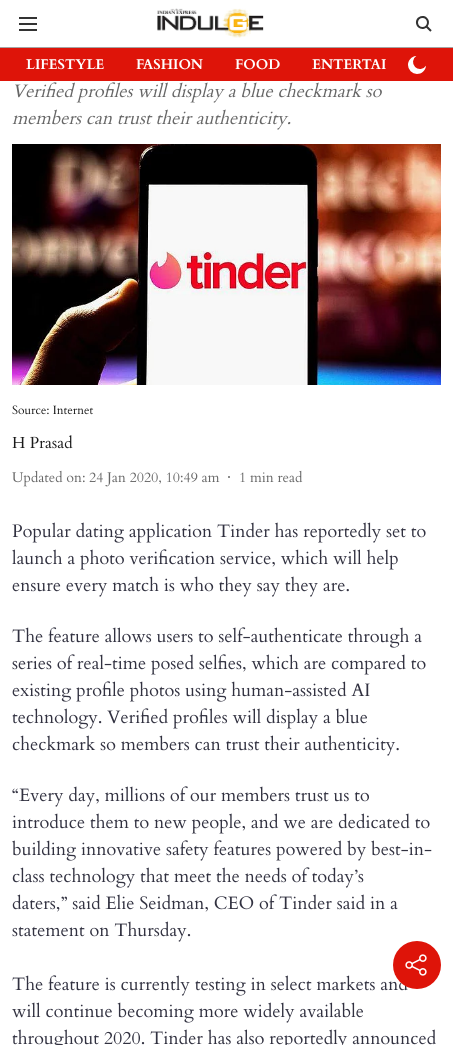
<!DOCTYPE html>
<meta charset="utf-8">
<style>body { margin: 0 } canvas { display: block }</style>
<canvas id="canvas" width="453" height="1045"></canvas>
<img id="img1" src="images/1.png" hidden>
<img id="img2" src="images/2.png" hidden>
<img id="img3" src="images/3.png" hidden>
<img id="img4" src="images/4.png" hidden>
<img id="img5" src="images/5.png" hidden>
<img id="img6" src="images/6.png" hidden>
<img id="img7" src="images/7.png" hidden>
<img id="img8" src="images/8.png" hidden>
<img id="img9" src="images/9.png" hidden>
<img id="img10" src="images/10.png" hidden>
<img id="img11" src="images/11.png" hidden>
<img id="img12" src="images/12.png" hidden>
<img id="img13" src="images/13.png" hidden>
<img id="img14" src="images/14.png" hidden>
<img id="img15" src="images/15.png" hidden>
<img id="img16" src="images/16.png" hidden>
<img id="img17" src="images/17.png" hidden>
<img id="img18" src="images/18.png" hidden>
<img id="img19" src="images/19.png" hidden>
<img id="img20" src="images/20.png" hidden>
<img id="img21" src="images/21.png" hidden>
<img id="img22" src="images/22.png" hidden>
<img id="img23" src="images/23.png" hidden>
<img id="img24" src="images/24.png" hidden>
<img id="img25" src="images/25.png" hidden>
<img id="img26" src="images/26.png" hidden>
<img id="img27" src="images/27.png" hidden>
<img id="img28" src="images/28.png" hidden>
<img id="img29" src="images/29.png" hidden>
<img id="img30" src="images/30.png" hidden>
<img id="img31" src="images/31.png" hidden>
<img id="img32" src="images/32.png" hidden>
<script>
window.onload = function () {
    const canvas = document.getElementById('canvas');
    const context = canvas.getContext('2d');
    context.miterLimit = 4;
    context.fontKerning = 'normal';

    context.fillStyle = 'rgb(255, 255, 255)';
    context.fillRect(0, 0, 453, 1045);
    context.fillStyle = 'rgb(164, 164, 164)';
    context.fillRect(0, 47, 453, 1);
    context.drawImage(document.getElementById('img1'), 19, 17, 18, 14);
    context.drawImage(document.getElementById('img2'), 157, 8, 107, 30);
    context.drawImage(document.getElementById('img3'), 415, 16, 17, 16);
    context.fillStyle = 'rgb(222, 20, 9)';
    context.fillRect(0, 48, 453, 33);
    context.drawImage(document.getElementById('img4'), 408, 56, 18, 18);
    context.drawImage(document.getElementById('img5'), 15, 82, 367, 21);
    context.drawImage(document.getElementById('img6'), 12, 109, 279, 21);
    context.drawImage(document.getElementById('img7'), 12, 144, 429, 241);
    context.drawImage(document.getElementById('img8'), 12, 405, 82, 10);
    context.drawImage(document.getElementById('img9'), 12, 435, 61, 14);
    context.drawImage(document.getElementById('img10'), 12, 470, 70, 17);
    context.drawImage(document.getElementById('img11'), 83, 475, 2, 8);
    context.drawImage(document.getElementById('img12'), 89, 472, 131, 15);
    context.fillStyle = 'rgb(102, 102, 102)';
    context.beginPath();
    context.arc(229, 477, 1, 0, 2 * Math.PI);
    context.fill();
    context.drawImage(document.getElementById('img13'), 240, 472, 5, 10);
    context.drawImage(document.getElementById('img14'), 250, 470, 53, 13);
    context.drawImage(document.getElementById('img15'), 12, 522, 414, 21);
    context.drawImage(document.getElementById('img16'), 12, 549, 386, 21);
    context.drawImage(document.getElementById('img17'), 12, 576, 337, 21);
    context.drawImage(document.getElementById('img18'), 12, 627, 410, 21);
    context.drawImage(document.getElementById('img19'), 12, 654, 414, 21);
    context.drawImage(document.getElementById('img20'), 12, 681, 358, 21);
    context.drawImage(document.getElementById('img21'), 12, 708, 355, 21);
    context.drawImage(document.getElementById('img22'), 12, 735, 387, 21);
    context.drawImage(document.getElementById('img23'), 12, 786, 357, 21);
    context.drawImage(document.getElementById('img24'), 12, 813, 418, 21);
    context.drawImage(document.getElementById('img25'), 12, 840, 420, 21);
    context.drawImage(document.getElementById('img26'), 12, 867, 352, 21);
    context.drawImage(document.getElementById('img27'), 12, 894, 386, 18);
    context.drawImage(document.getElementById('img28'), 12, 921, 179, 21);
    context.drawImage(document.getElementById('img29'), 12, 975, 396, 21);
    context.drawImage(document.getElementById('img30'), 12, 1002, 351, 21);
    context.drawImage(document.getElementById('img31'), 12, 1029, 424, 16);
    context.fillStyle = 'rgb(222, 20, 9)';
    context.beginPath();
    context.arc(417, 965, 24, 0, 2 * Math.PI);
    context.fill();
    context.drawImage(document.getElementById('img32'), 405, 954, 22, 22);
    context.font = 'bold 14px Cardo';
    context.fillStyle = 'rgb(255, 255, 255)';
    context.fillText('LIFESTYLE', 26, 69);
    context.fillText('FASHION', 136, 69);
    context.fillText('FOOD', 235, 69);
    context.fillText('ENTERTAI', 312, 69);
};
</script>
